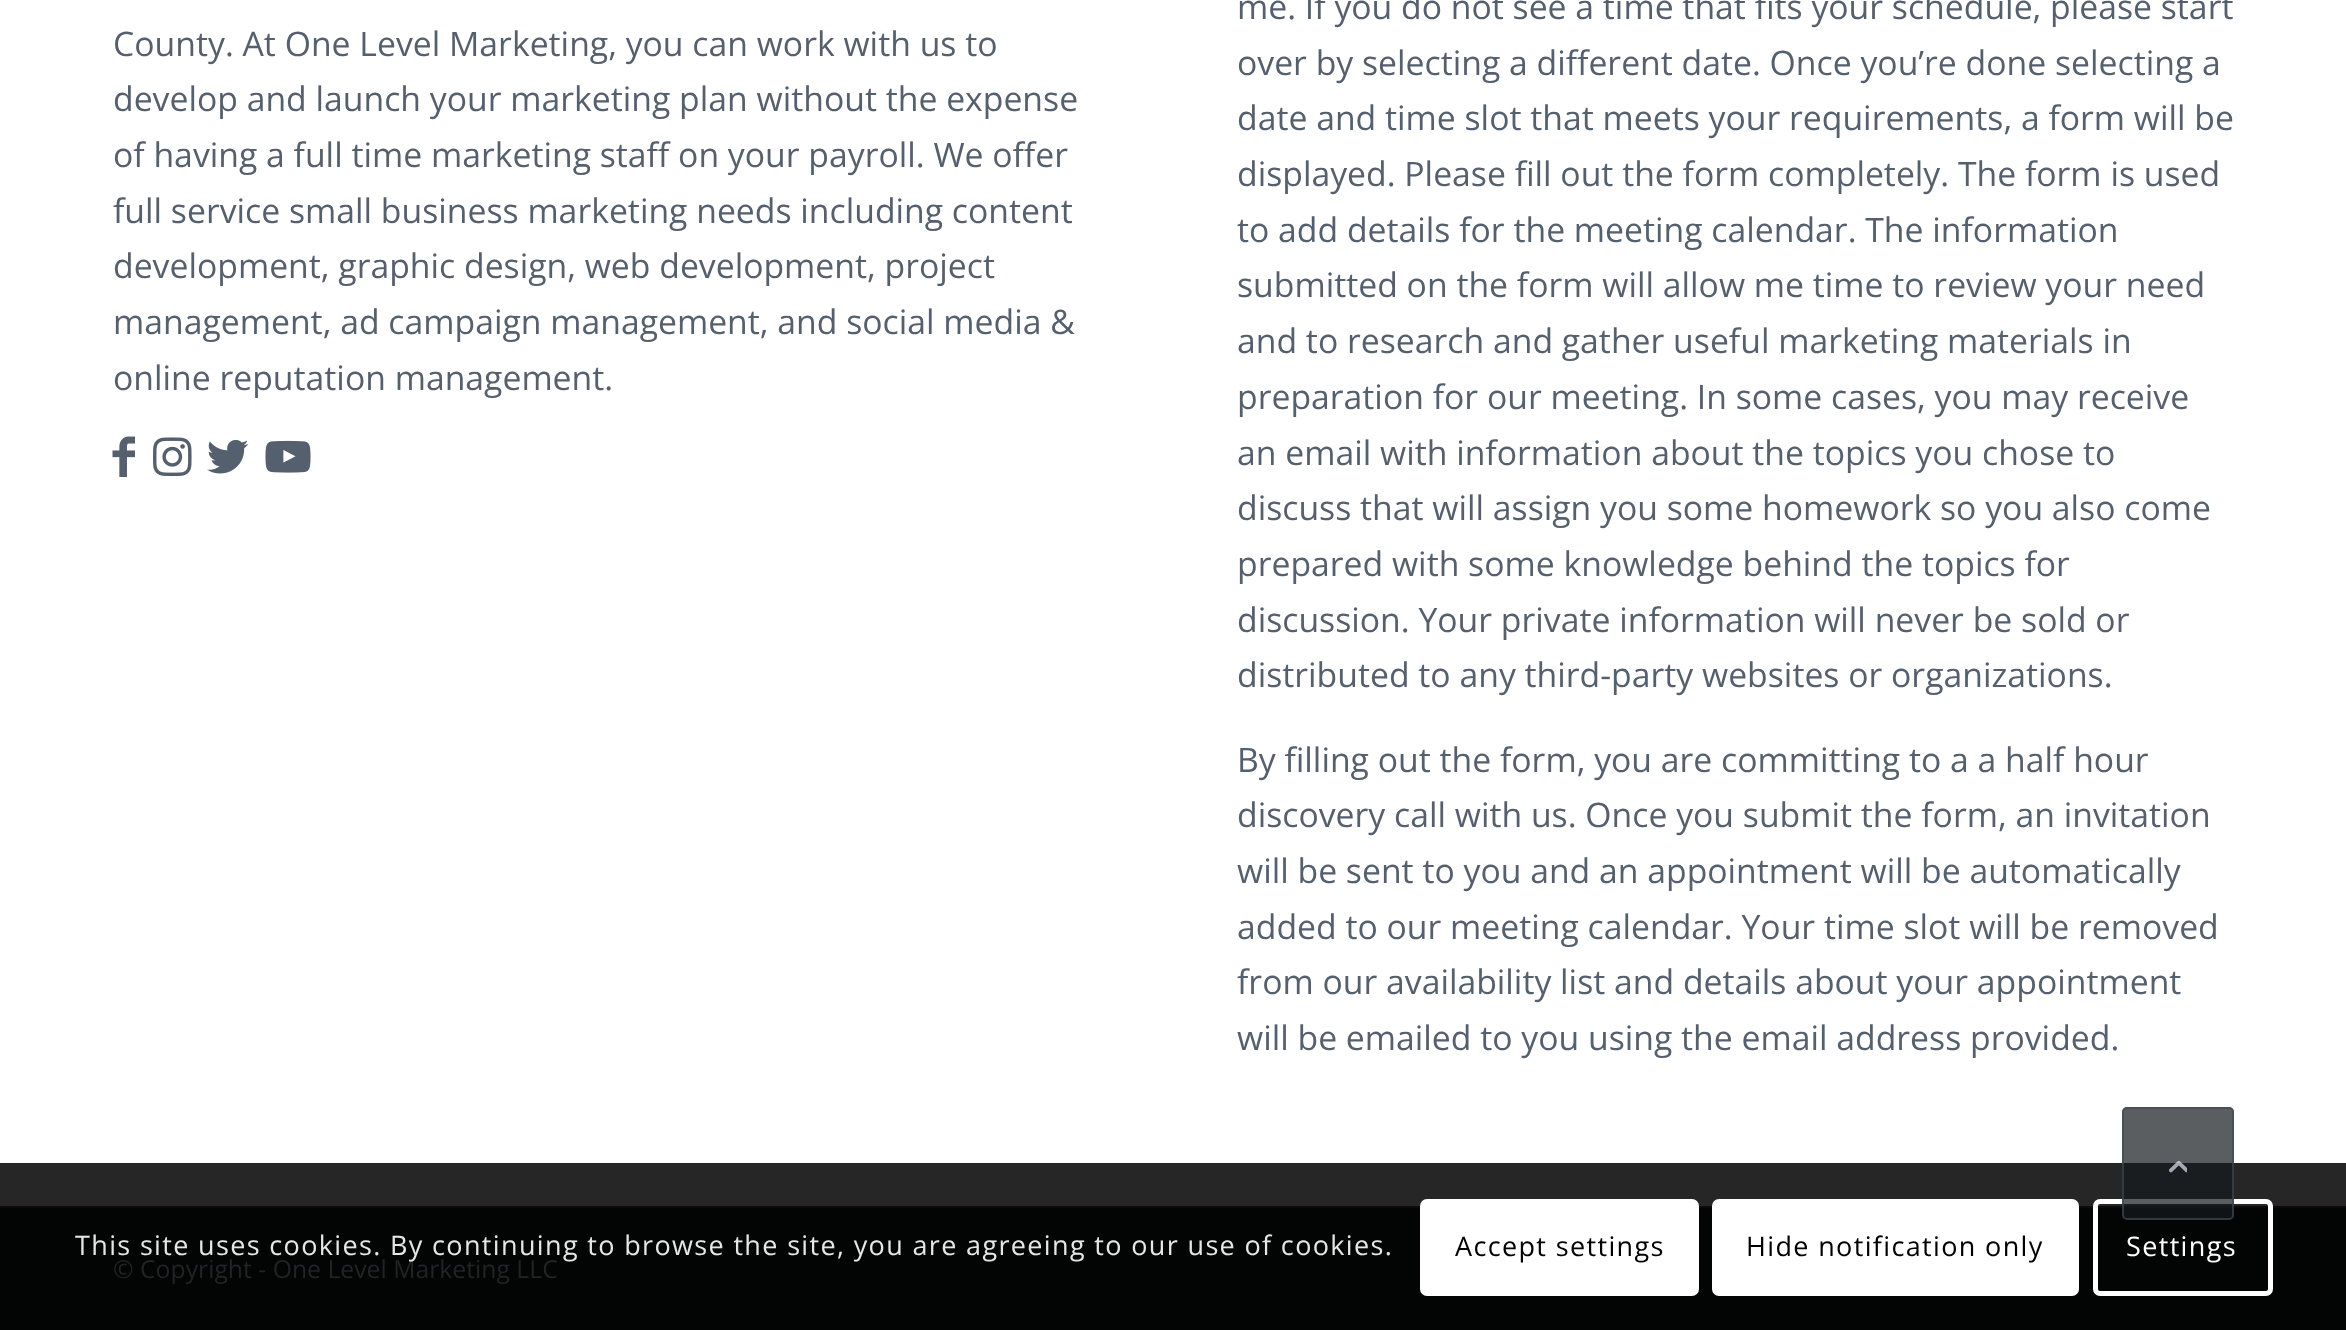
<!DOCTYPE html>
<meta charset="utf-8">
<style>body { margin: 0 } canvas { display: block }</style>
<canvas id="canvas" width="2346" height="1330"></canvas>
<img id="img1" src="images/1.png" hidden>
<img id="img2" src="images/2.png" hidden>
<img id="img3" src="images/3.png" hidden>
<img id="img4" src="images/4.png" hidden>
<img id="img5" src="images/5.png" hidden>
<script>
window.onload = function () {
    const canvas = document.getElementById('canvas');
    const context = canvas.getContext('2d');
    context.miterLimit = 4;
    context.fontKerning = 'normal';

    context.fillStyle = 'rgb(255, 255, 255)';
    context.fillRect(0, 0, 2346, 1330);
    context.fillStyle = 'rgb(38, 38, 38)';
    context.fillRect(0, 1163, 2346, 43);
    context.drawImage(document.getElementById('img1'), 112, 436, 23, 41);
    context.drawImage(document.getElementById('img2'), 153, 437, 39, 40);
    context.drawImage(document.getElementById('img3'), 207, 439, 42, 35);
    context.drawImage(document.getElementById('img4'), 265, 440, 46, 33);
    context.fillStyle = 'rgb(3, 4, 4)';
    context.fillRect(0, 1208, 2346, 122);
    context.fillStyle = 'rgb(9, 11, 12)';
    context.fillRect(0, 1206, 2346, 2);
    context.beginPath();
    context.roundRect(2095.5, 1201.5, 175, 92, 4.5);
    context.strokeStyle = 'rgb(255, 255, 255)';
    context.lineWidth = 5;
    context.stroke();
    context.fillStyle = 'rgba(22, 26, 28, 0.7)';
    context.beginPath();
    context.roundRect(2122, 1107, 112, 113, 5);
    context.fill();
    context.beginPath();
    context.roundRect(2123, 1108, 110, 111, 4);
    context.strokeStyle = 'rgba(62, 74, 82, 0.7)';
    context.lineWidth = 2;
    context.stroke();
    context.drawImage(document.getElementById('img5'), 2169, 1160, 18, 13);
    context.fillStyle = 'rgb(255, 255, 255)';
    context.beginPath();
    context.roundRect(1420, 1199, 279, 97, 7);
    context.fill();
    context.beginPath();
    context.roundRect(1712, 1199, 367, 97, 7);
    context.fill();
    context.font = '33.75px Open Sans';
    context.fillStyle = 'rgb(85, 96, 110)';
    context.fillText('County. At One Level Marketing, you can work with us to', 113, 56);
    context.fillText('develop and launch your marketing plan without the expense', 113, 111);
    context.fillText('of having a full time marketing staff on your payroll. We offer', 113, 167);
    context.fillText('full service small business marketing needs including content', 113, 223);
    context.fillText('development, graphic design, web development, project', 113, 278);
    context.fillText('management, ad campaign management, and social media &', 113, 334);
    context.fillText('online reputation management.', 113, 390);
    context.fillText('me. If you do not see a time that fits your schedule, please start', 1237, 19);
    context.fillText('over by selecting a different date. Once you’re done selecting a', 1237, 75);
    context.fillText('date and time slot that meets your requirements, a form will be', 1237, 130);
    context.fillText('displayed. Please fill out the form completely. The form is used', 1237, 186);
    context.fillText('to add details for the meeting calendar. The information', 1237, 242);
    context.fillText('submitted on the form will allow me time to review your need', 1237, 297);
    context.fillText('and to research and gather useful marketing materials in', 1237, 353);
    context.fillText('preparation for our meeting. In some cases, you may receive', 1237, 409);
    context.fillText('an email with information about the topics you chose to', 1237, 465);
    context.fillText('discuss that will assign you some homework so you also come', 1237, 520);
    context.fillText('prepared with some knowledge behind the topics for', 1237, 576);
    context.fillText('discussion. Your private information will never be sold or', 1237, 632);
    context.fillText('distributed to any third-party websites or organizations.', 1237, 687);
    context.fillText('By filling out the form, you are committing to a a half hour', 1237, 772);
    context.fillText('discovery call with us. Once you submit the form, an invitation', 1237, 827);
    context.fillText('will be sent to you and an appointment will be automatically', 1237, 883);
    context.fillText('added to our meeting calendar. Your time slot will be removed', 1237, 939);
    context.fillText('from our availability list and details about your appointment', 1237, 994);
    context.fillText('will be emailed to you using the email address provided.', 1237, 1050);
    context.font = '24.75px Open Sans';
    context.fillStyle = 'rgb(34, 35, 36)';
    context.fillText('© Copyright - One Level Marketing LLC', 113, 1278);
    context.letterSpacing = '1.35px';
    context.font = '27px Open Sans';
    context.fillStyle = 'rgb(230, 230, 230)';
    context.fillText('This site uses cookies. By continuing to browse the site, you are agreeing to our use of cookies.', 75, 1255);
    context.fillStyle = 'rgb(0, 0, 0)';
    context.fillText('Accept settings', 1455, 1256);
    context.fillText('Hide notification only', 1746, 1256);
    context.fillStyle = 'rgb(255, 255, 255)';
    context.fillText('Settings', 2126, 1256);
};
</script>
